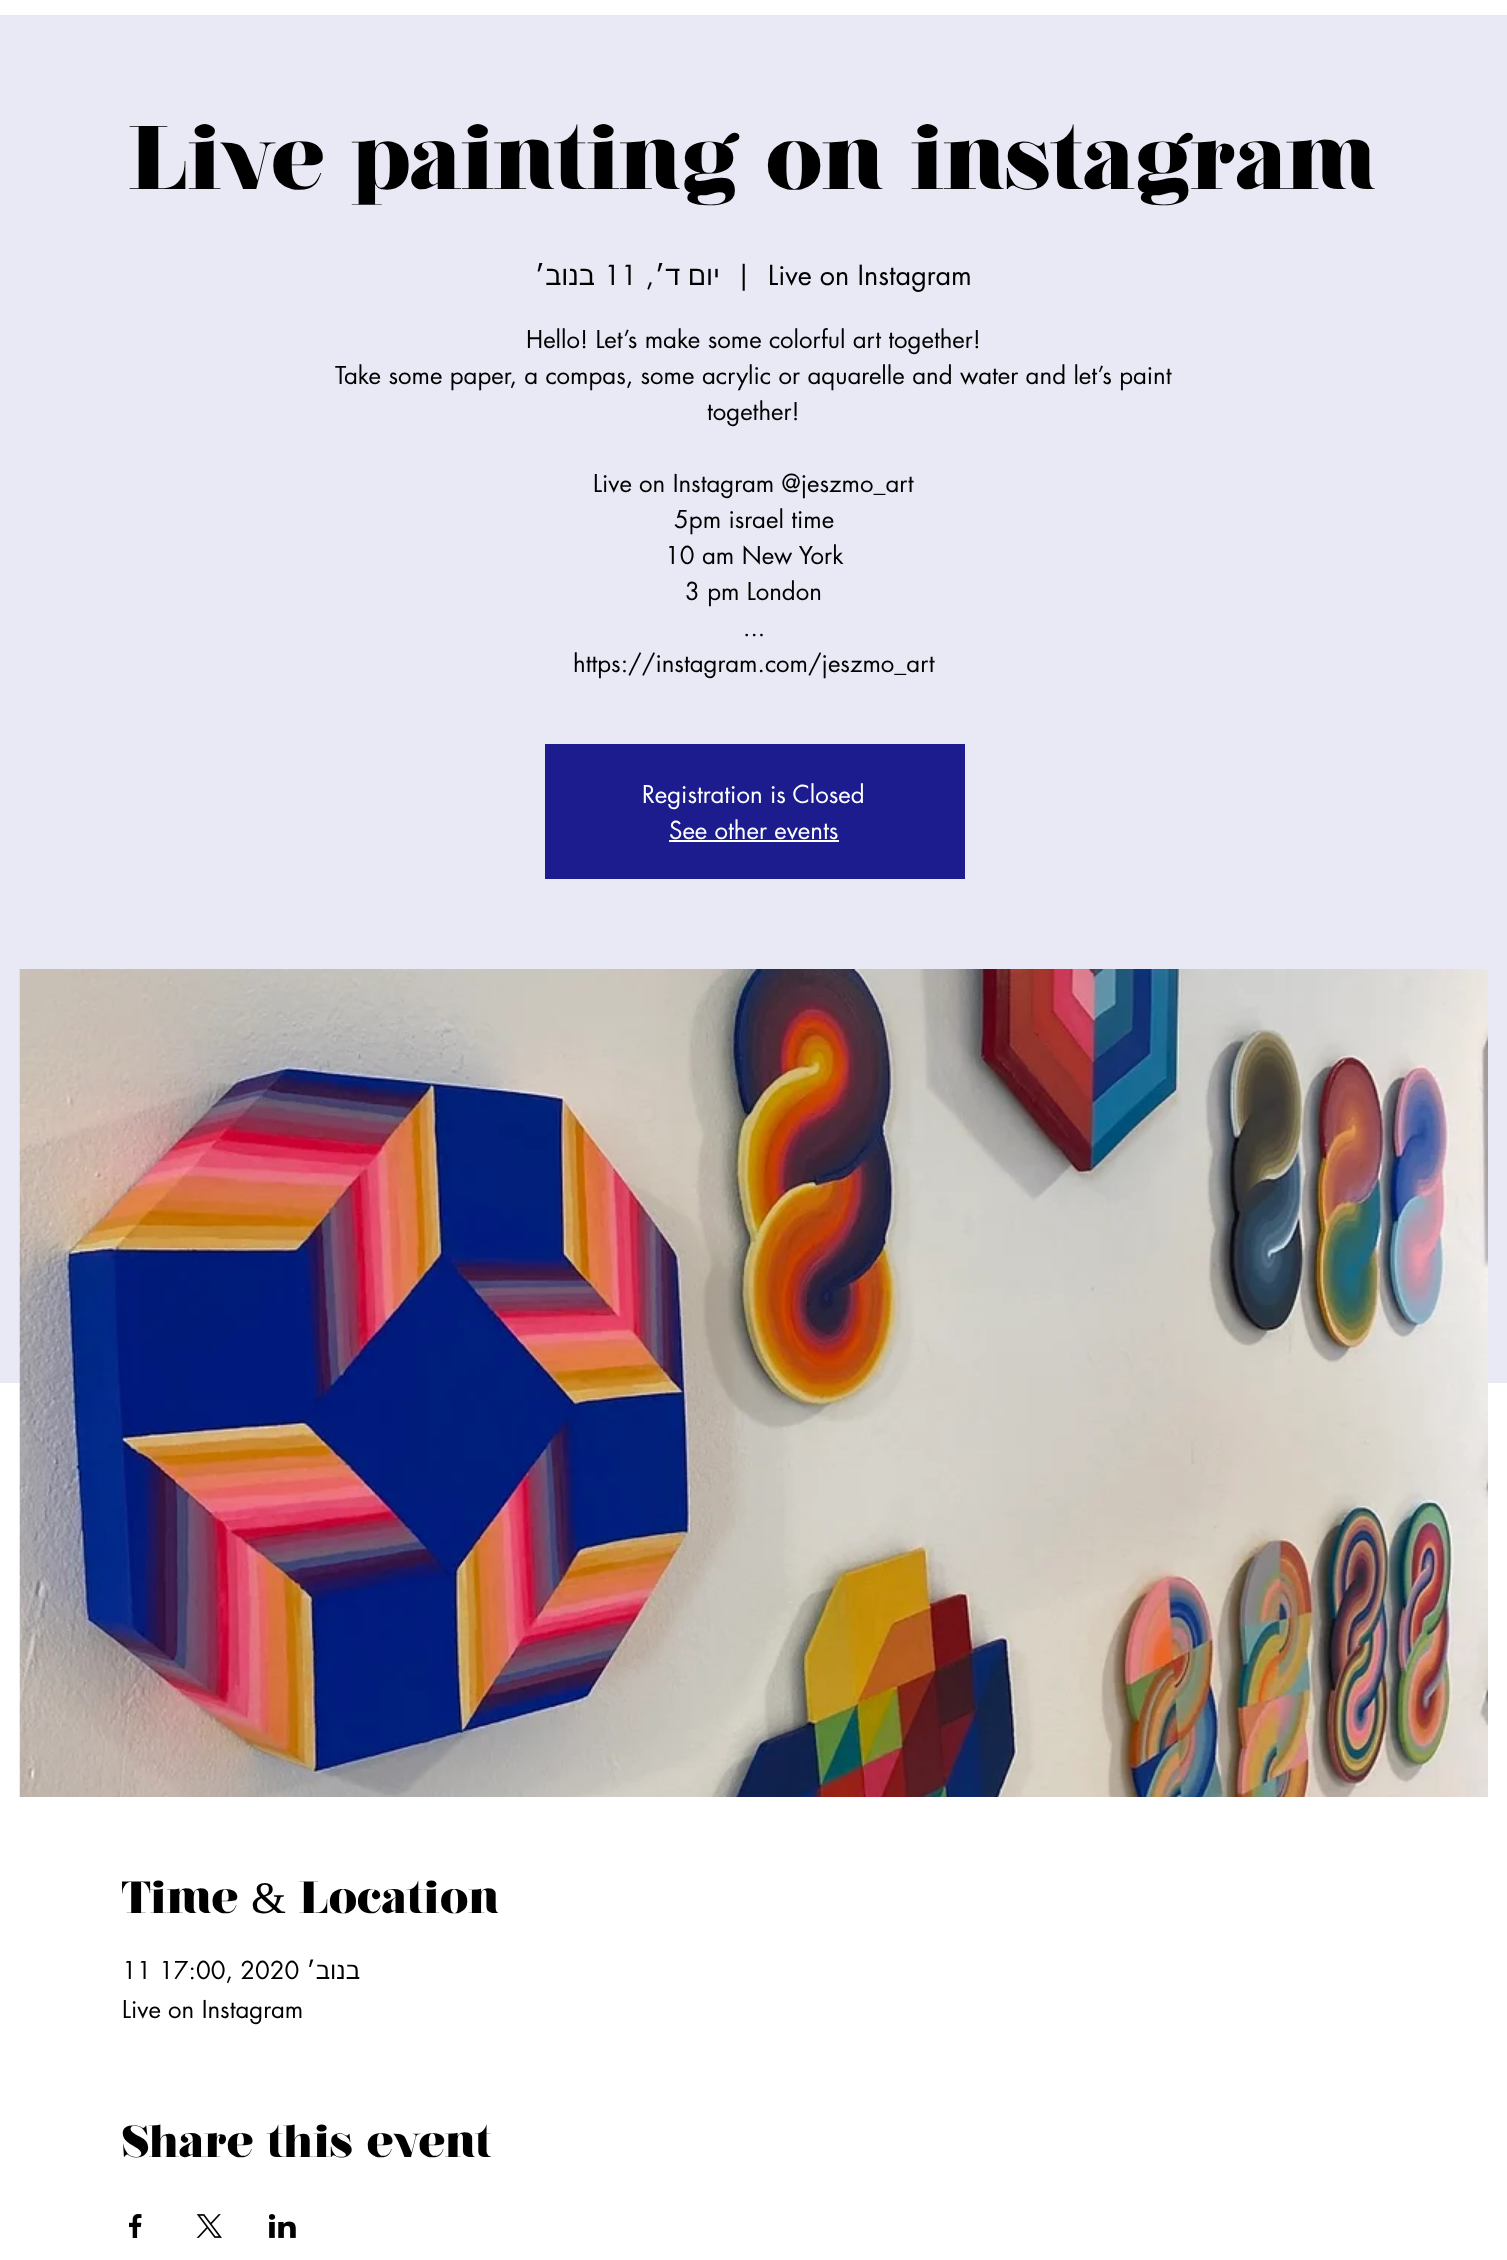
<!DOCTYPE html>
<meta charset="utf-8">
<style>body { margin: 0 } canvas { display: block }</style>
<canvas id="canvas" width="1507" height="2260"></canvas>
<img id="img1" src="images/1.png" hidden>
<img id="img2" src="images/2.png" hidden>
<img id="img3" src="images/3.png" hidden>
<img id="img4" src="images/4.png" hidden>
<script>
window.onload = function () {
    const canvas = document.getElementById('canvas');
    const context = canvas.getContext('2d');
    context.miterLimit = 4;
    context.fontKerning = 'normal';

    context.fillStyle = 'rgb(255, 255, 255)';
    context.fillRect(0, 0, 1507, 2260);
    context.fillStyle = 'rgb(233, 233, 245)';
    context.fillRect(0, 15, 1507, 1368);
    context.fillStyle = 'rgb(28, 28, 142)';
    context.fillRect(545, 744, 420, 135);
    context.fillStyle = 'rgb(255, 255, 255)';
    context.fillRect(669, 840, 170, 2);
    context.drawImage(document.getElementById('img1'), 19, 969, 1469, 828);
    context.drawImage(document.getElementById('img2'), 129, 2214, 13, 24);
    context.drawImage(document.getElementById('img3'), 196, 2214, 26, 24);
    context.drawImage(document.getElementById('img4'), 269, 2214, 27, 24);
    context.font = '900 90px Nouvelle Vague';
    context.fillStyle = 'rgb(0, 0, 0)';
    context.fillText('Live painting on instagram', 131, 189);
    context.direction = 'rtl';
    context.font = '27px Liberation Sans';
    context.fillText('בנוב׳', 595, 285);
    context.direction = 'ltr';
    context.font = '27px futura';
    context.fillText('11', 604, 285);
    context.direction = 'rtl';
    context.fillText(',', 654, 285);
    context.font = '27px Liberation Sans';
    context.fillText('יום ד׳', 720, 285);
    context.direction = 'ltr';
    context.font = '27px futura';
    context.fillText('|', 736, 285);
    context.fillText('Live on Instagram', 768, 285);
    context.font = '24px futura';
    context.fillText('Hello! Let’s make some colorful art together!', 526, 348);
    context.fillText('Take some paper, a compas, some acrylic or aquarelle and water and let’s paint', 335, 384);
    context.fillText('together!', 707, 420);
    context.fillText('Live on Instagram @jeszmo_art', 593, 492);
    context.fillText('5pm israel time', 674, 528);
    context.fillText('10 am New York', 665, 564);
    context.fillText('3 pm London', 685, 600);
    context.fillText('...', 743, 636);
    context.fillText('https://instagram.com/jeszmo_art', 573, 672);
    context.fillStyle = 'rgb(255, 255, 255)';
    context.fillText('Registration is Closed', 642, 803);
    context.fillText('See other events', 669, 839);
    context.font = '900 45px Nouvelle Vague';
    context.fillStyle = 'rgb(0, 0, 0)';
    context.fillText('Time', 122, 1913);
    context.font = '45px Liberation Serif';
    context.fillText('&', 251, 1913);
    context.font = '900 45px Nouvelle Vague';
    context.fillText('Location', 300, 1913);
    context.font = '24px futura';
    context.fillText('11 17:00, 2020', 122, 1979);
    context.direction = 'rtl';
    context.font = '24px Liberation Sans';
    context.fillText('בנוב׳', 360, 1979);
    context.direction = 'ltr';
    context.font = '24px futura';
    context.fillText('Live on Instagram', 122, 2018);
    context.font = '900 45px Nouvelle Vague';
    context.fillText('Share this event', 122, 2157);
};
</script>
